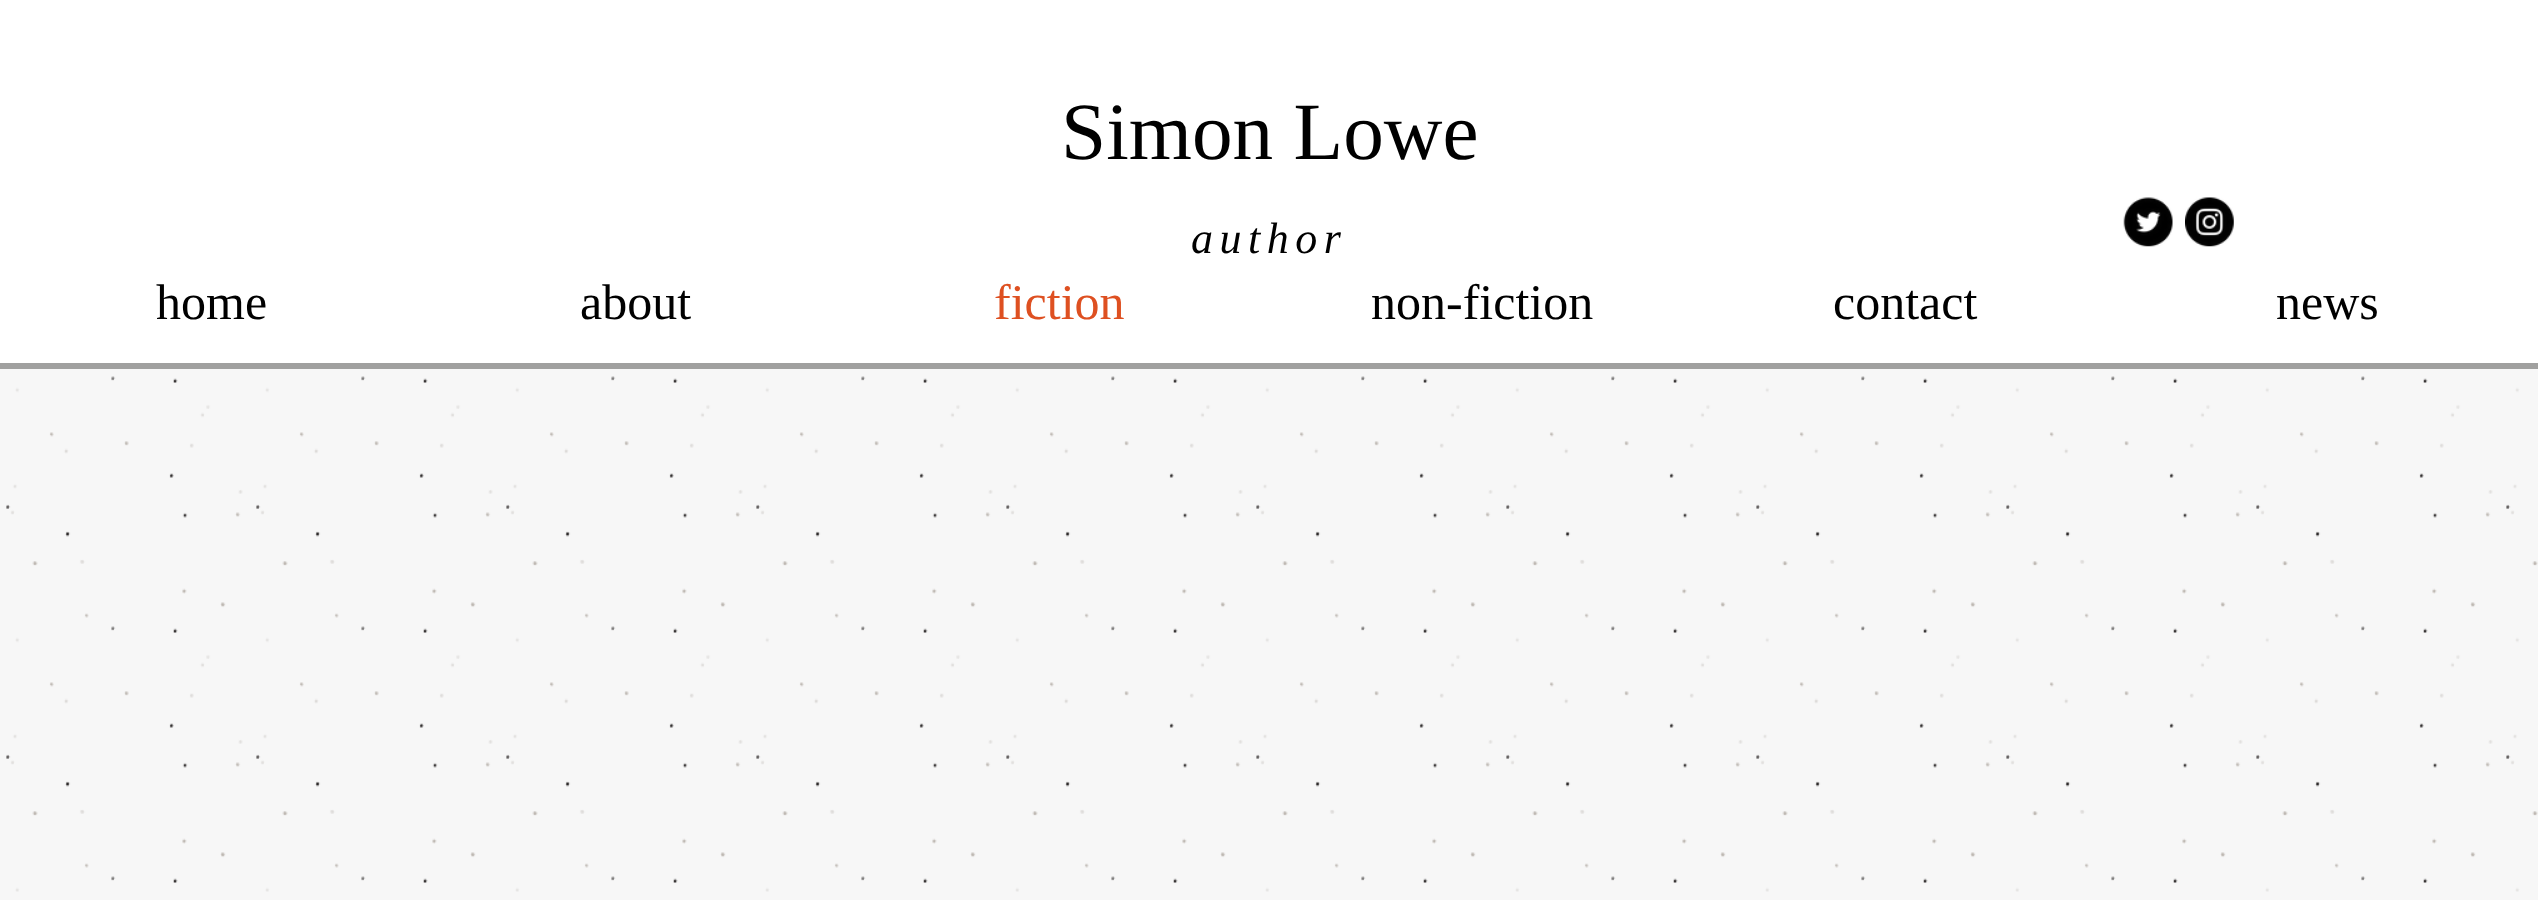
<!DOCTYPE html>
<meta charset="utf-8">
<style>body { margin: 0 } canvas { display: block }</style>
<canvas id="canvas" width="2538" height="900"></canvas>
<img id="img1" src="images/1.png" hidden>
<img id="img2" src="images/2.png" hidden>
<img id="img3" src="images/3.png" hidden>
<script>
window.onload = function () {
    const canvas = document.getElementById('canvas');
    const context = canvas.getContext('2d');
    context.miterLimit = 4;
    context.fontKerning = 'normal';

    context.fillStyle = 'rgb(247, 247, 247)';
    context.fillRect(0, 0, 2538, 900);
    context.fillStyle = 'rgb(255, 255, 255)';
    context.fillRect(0, 0, 2538, 363);
    context.fillStyle = 'rgb(160, 160, 159)';
    context.fillRect(0, 363, 2538, 6);
    context.drawImage(document.getElementById('img1'), 2123, 197, 50, 50);
    context.drawImage(document.getElementById('img2'), 2185, 197, 49, 50);
    context.drawImage(document.getElementById('img3'), 6, 376, 2532, 516);
    context.font = '81.25px Liberation Serif';
    context.fillStyle = 'rgb(0, 0, 0)';
    context.fillText('Simon Lowe', 1061, 159);
    context.letterSpacing = '6.5px';
    context.font = 'italic 44px Liberation Serif';
    context.fillText('author', 1191, 253);
    context.letterSpacing = '0px';
    context.font = '50px Liberation Serif';
    context.fillText('home', 156, 319);
    context.fillText('about', 580, 319);
    context.fillStyle = 'rgb(222, 80, 33)';
    context.fillText('fiction', 994, 319);
    context.fillStyle = 'rgb(0, 0, 0)';
    context.fillText('non-fiction', 1371, 319);
    context.fillText('contact', 1833, 319);
    context.fillText('news', 2276, 319);
};
</script>
